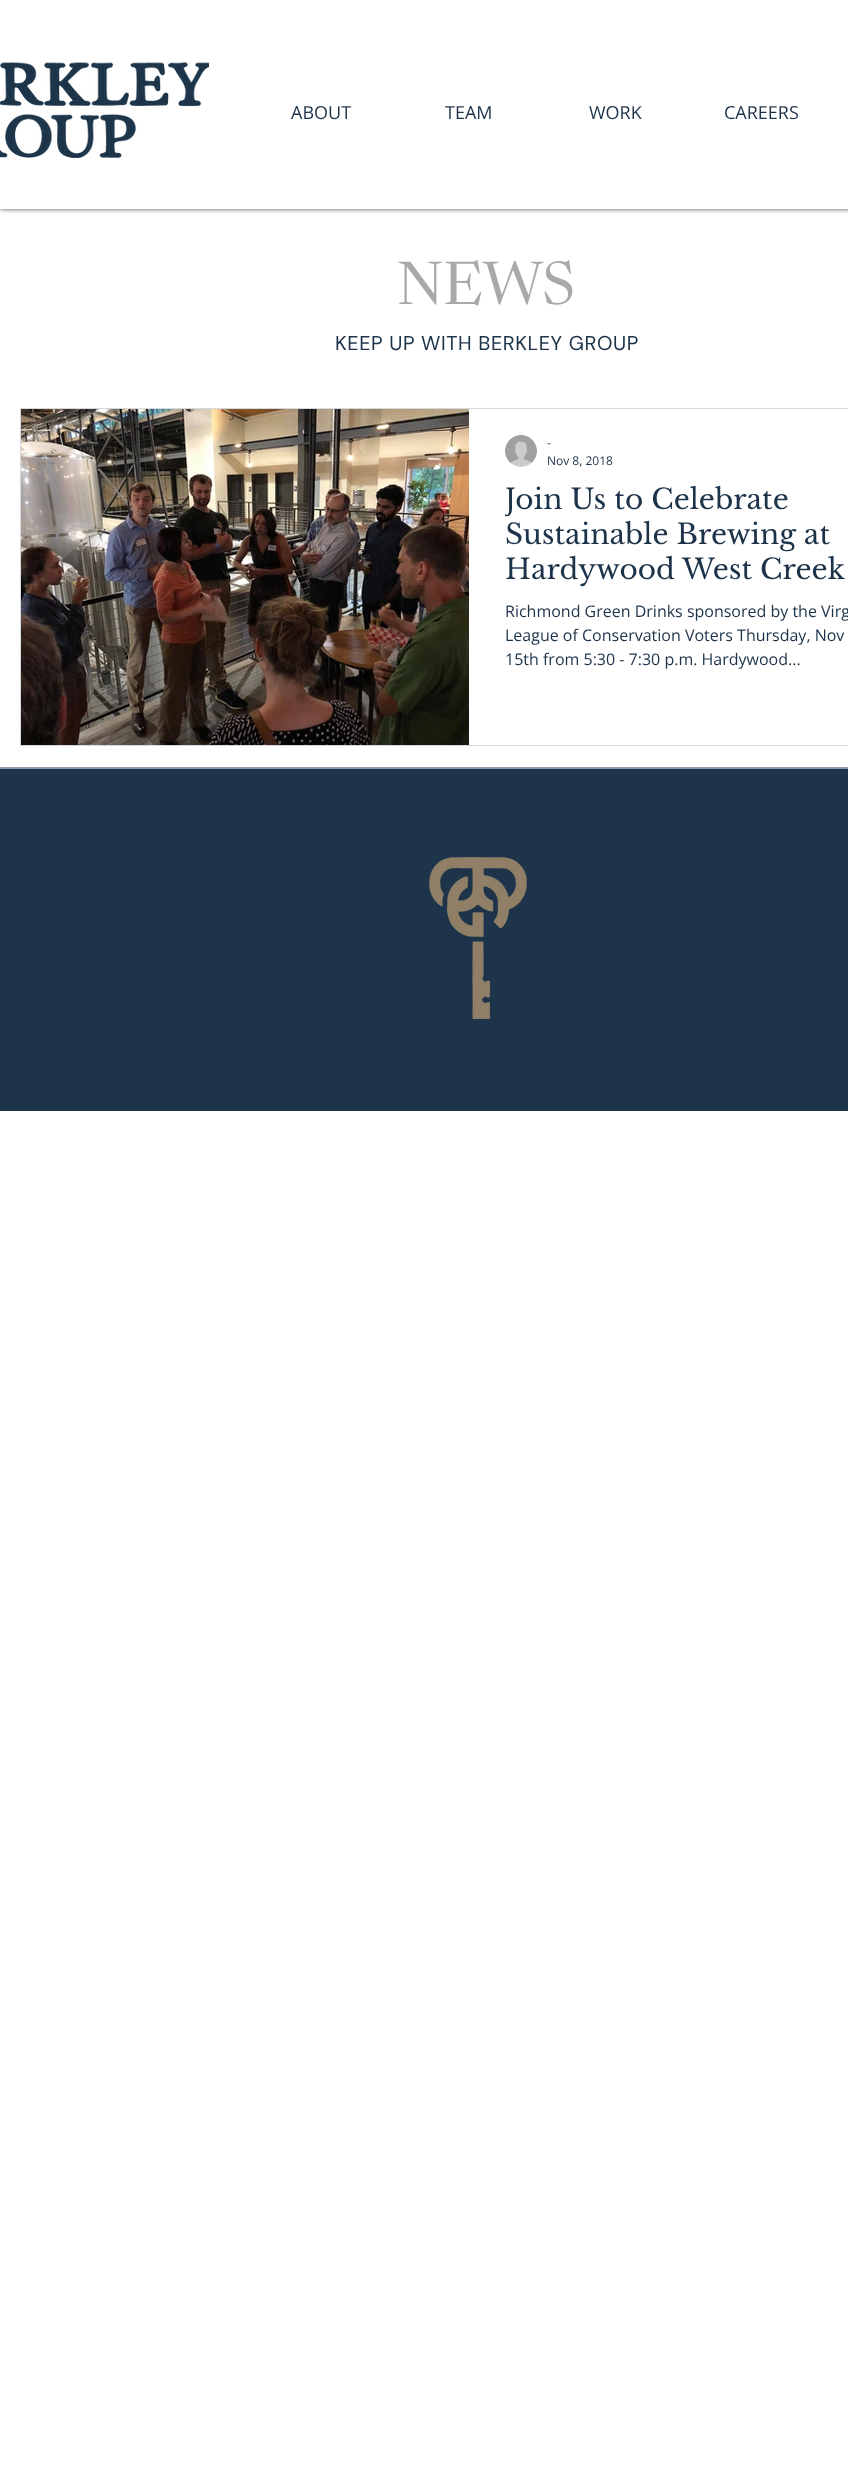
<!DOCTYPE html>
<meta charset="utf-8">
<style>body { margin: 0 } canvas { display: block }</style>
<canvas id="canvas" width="848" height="2489"></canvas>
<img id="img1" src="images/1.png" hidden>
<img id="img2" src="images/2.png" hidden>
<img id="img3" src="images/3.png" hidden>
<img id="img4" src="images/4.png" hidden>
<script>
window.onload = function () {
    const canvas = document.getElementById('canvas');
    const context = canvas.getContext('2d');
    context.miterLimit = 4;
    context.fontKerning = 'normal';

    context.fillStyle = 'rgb(255, 255, 255)';
    context.fillRect(0, 0, 848, 2489);
    context.save();
    context.beginPath();
    context.rect(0, 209, 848, 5);
    context.clip();
    context.fillStyle = 'rgba(0, 0, 0, 0.7)';
    context.filter = 'blur(2.5px)';
    context.beginPath();
    context.rect(0, 0, 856, 209);
    context.fill();
    context.filter = 'none';
    context.restore();
    context.drawImage(document.getElementById('img1'), 0, 62, 209, 96);
    context.strokeStyle = 'rgb(213, 217, 221)';
    context.strokeRect(20.5, 408.5, 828, 337);
    context.drawImage(document.getElementById('img2'), 21, 409, 448, 336);
    context.drawImage(document.getElementById('img3'), 505, 435, 32, 32);
    context.fillStyle = 'rgb(29, 52, 74)';
    context.fillRect(0, 769, 848, 342);
    context.fillStyle = 'rgb(142, 153, 165)';
    context.fillRect(0, 767, 848, 2);
    context.drawImage(document.getElementById('img4'), 429, 857, 98, 162);
    context.font = '18px Open Sans';
    context.fillStyle = 'rgb(29, 51, 74)';
    context.fillText('ABOUT', 291, 119);
    context.fillText('TEAM', 445, 119);
    context.fillText('WORK', 589, 119);
    context.fillText('CAREERS', 724, 119);
    context.font = '60px Newsreader';
    context.fillStyle = 'rgb(169, 169, 169)';
    context.fillText('NEWS', 397, 304);
    context.letterSpacing = '0.6px';
    context.font = '20px DM Sans';
    context.fillStyle = 'rgb(29, 51, 74)';
    context.fillText('KEEP UP WITH BERKLEY GROUP', 335, 350);
    context.letterSpacing = '0px';
    context.font = '12px Open Sans';
    context.fillText('-', 547, 447);
    context.fillText('Nov 8, 2018', 547, 465);
    context.save();
    context.beginPath();
    context.rect(505, 482, 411, 105);
    context.clip();
    context.font = '28px Libre Baskerville';
    context.fillText('Join Us to Celebrate', 505, 509);
    context.restore();
    context.font = '28px Libre Baskerville';
    context.fillText('Sustainable Brewing at', 505, 544);
    context.fillText('Hardywood West Creek', 505, 579);
    context.font = '16px Open Sans';
    context.fillText('Richmond Green Drinks sponsored by the Virg', 505, 617);
    context.fillText('League of Conservation Voters Thursday, Nov', 505, 641);
    context.fillText('15th from 5:30 - 7:30 p.m. Hardywood...', 505, 665);
};
</script>
